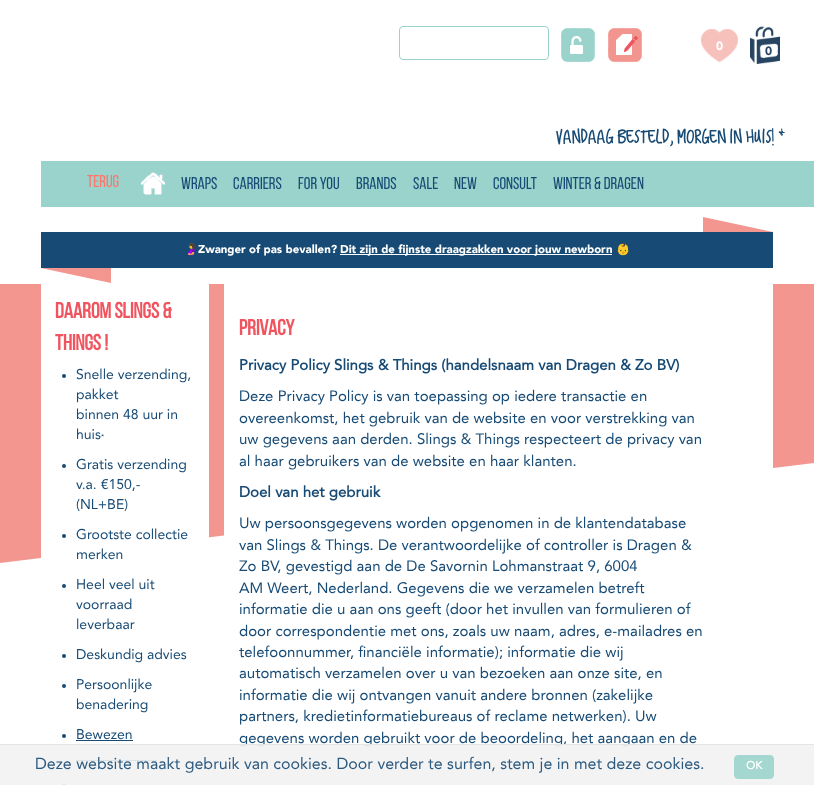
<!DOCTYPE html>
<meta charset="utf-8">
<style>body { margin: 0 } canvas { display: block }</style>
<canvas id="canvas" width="814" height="785"></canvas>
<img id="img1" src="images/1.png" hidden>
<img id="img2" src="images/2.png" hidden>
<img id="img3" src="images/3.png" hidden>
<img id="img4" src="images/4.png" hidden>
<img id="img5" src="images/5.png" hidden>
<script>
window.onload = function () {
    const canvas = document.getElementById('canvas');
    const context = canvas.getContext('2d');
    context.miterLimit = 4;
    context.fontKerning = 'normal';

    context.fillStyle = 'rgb(255, 255, 255)';
    context.fillRect(0, 0, 814, 785);
    context.fillStyle = 'rgb(243, 150, 143)';
    context.beginPath();
    context.moveTo(0, 53);
    context.lineTo(814, -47);
    context.lineTo(814, 463);
    context.lineTo(0, 563);
    context.closePath();
    context.fill();
    context.fillStyle = 'rgb(255, 255, 255)';
    context.fillRect(0, 0, 814, 284);
    context.beginPath();
    context.roundRect(399.5, 26.5, 149, 33, 3.5);
    context.strokeStyle = 'rgb(154, 211, 203)';
    context.stroke();
    context.drawImage(document.getElementById('img1'), 561, 28, 34, 34);
    context.drawImage(document.getElementById('img2'), 608, 28, 34, 34);
    context.drawImage(document.getElementById('img3'), 701, 29, 37, 33);
    context.drawImage(document.getElementById('img4'), 750, 26, 30, 38);
    context.fillStyle = 'rgb(154, 211, 203)';
    context.fillRect(41, 161, 773, 46);
    context.drawImage(document.getElementById('img5'), 141, 172, 24, 23);
    context.fillStyle = 'rgb(23, 75, 117)';
    context.fillRect(41, 232, 732, 36);
    context.fillStyle = 'rgb(243, 150, 143)';
    context.beginPath();
    context.moveTo(773, 232);
    context.lineTo(703, 232);
    context.lineTo(703, 217);
    context.closePath();
    context.fill();
    context.fillStyle = 'rgb(255, 255, 255)';
    context.fillRect(340, 254, 272, 1);
    context.fillStyle = 'rgb(243, 150, 143)';
    context.beginPath();
    context.moveTo(41, 268);
    context.lineTo(111, 268);
    context.lineTo(111, 283);
    context.closePath();
    context.fill();
    context.fillStyle = 'rgb(255, 255, 255)';
    context.fillRect(41, 284, 168, 274);
    context.fillStyle = 'rgb(23, 75, 117)';
    context.beginPath();
    context.arc(64, 376, 2, 0, 2 * Math.PI);
    context.fill();
    context.beginPath();
    context.arc(64, 466, 2, 0, 2 * Math.PI);
    context.fill();
    context.beginPath();
    context.arc(64, 536, 2, 0, 2 * Math.PI);
    context.fill();
    context.beginPath();
    context.arc(64, 586, 2, 0, 2 * Math.PI);
    context.fill();
    context.beginPath();
    context.arc(64, 656, 2, 0, 2 * Math.PI);
    context.fill();
    context.beginPath();
    context.arc(64, 686, 2, 0, 2 * Math.PI);
    context.fill();
    context.beginPath();
    context.arc(64, 736, 2, 0, 2 * Math.PI);
    context.fill();
    context.fillRect(76, 740, 57, 1);
    context.fillRect(76, 760, 81, 1);
    context.beginPath();
    context.roundRect(62, 784, 4, 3, 2);
    context.fill();
    context.fillStyle = 'rgb(255, 255, 255)';
    context.fillRect(224, 284, 549, 252);
    context.font = '900 12px Avenir';
    context.fillText('0', 716, 50);
    context.fillStyle = 'rgb(39, 69, 100)';
    context.fillText('0', 765, 55);
    context.font = '20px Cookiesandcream';
    context.fillStyle = 'rgb(23, 75, 117)';
    context.fillText('Vandaag besteld, morgen in huis! *', 556, 144);
    context.font = '17px Bebas Neue';
    context.fillStyle = 'rgb(255, 117, 106)';
    context.fillText('Terug', 87, 187);
    context.fillStyle = 'rgb(23, 75, 117)';
    context.fillText('Wraps', 181, 189);
    context.fillText('Carriers', 233, 189);
    context.fillText('For you', 298, 189);
    context.fillText('Brands', 356, 189);
    context.fillText('Sale', 413, 189);
    context.fillText('New', 454, 189);
    context.fillText('Consult', 493, 189);
    context.fillText('Winter & Dragen', 553, 189);
    context.font = '11.4px Noto Color Emoji';
    context.fillStyle = 'rgb(255, 255, 255)';
    context.fillText('🤰', 184, 253);
    context.font = '900 11.4px Avenir';
    context.fillText('Zwanger of pas bevallen?', 198, 253);
    context.fillText('Dit zijn de fijnste draagzakken voor jouw newborn', 340, 253);
    context.font = '11.4px Noto Color Emoji';
    context.fillText('👶', 616, 253);
    context.font = 'bold 22px Bebas Neue';
    context.fillStyle = 'rgb(240, 84, 95)';
    context.fillText('DAAROM SLINGS &', 55, 318);
    context.fillText('THINGS !', 55, 350);
    context.font = '14px Avenir';
    context.fillStyle = 'rgb(23, 75, 117)';
    context.fillText('Snelle verzending,', 76, 379);
    context.fillText('pakket', 76, 399);
    context.fillText('binnen 48 uur in', 76, 419);
    context.fillText('huis', 76, 439);
    context.font = '7px Avenir';
    context.fillText('*', 101, 439);
    context.font = '14px Avenir';
    context.fillText('Gratis verzending', 76, 469);
    context.fillText('v.a. €150,-', 76, 489);
    context.fillText('(NL+BE)', 76, 509);
    context.fillText('Grootste collectie', 76, 539);
    context.fillText('merken', 76, 559);
    context.fillText('Heel veel uit', 76, 589);
    context.fillText('voorraad', 76, 609);
    context.fillText('leverbaar', 76, 629);
    context.fillText('Deskundig advies', 76, 659);
    context.fillText('Persoonlijke', 76, 689);
    context.fillText('benadering', 76, 709);
    context.fillText('Bewezen', 76, 739);
    context.font = 'bold 22px Bebas Neue';
    context.fillStyle = 'rgb(240, 84, 95)';
    context.fillText('PRIVACY', 239, 335);
    context.font = 'bold 15px Avenir';
    context.fillStyle = 'rgb(23, 75, 117)';
    context.fillText('Privacy Policy Slings & Things (handelsnaam van Dragen & Zo BV)', 239, 370);
    context.font = '15px Avenir';
    context.fillText('Deze Privacy Policy is van toepassing op iedere transactie en', 239, 401);
    context.fillText('overeenkomst, het gebruik van de website en voor verstrekking van', 239, 423);
    context.fillText('uw gegevens aan derden. Slings & Things respecteert de privacy van', 239, 444);
    context.fillText('al haar gebruikers van de website en haar klanten.', 239, 466);
    context.font = 'bold 15px Avenir';
    context.fillText('Doel van het gebruik', 239, 497);
    context.font = '15px Avenir';
    context.fillText('Uw persoonsgegevens worden opgenomen in de klantendatabase', 239, 528);
    context.fillText('van Slings & Things. De verantwoordelijke of controller is Dragen &', 239, 550);
    context.fillText('Zo BV, gevestigd aan de De Savornin Lohmanstraat 9, 6004', 239, 571);
    context.fillText('AM Weert, Nederland. Gegevens die we verzamelen betreft', 239, 593);
    context.fillText('informatie die u aan ons geeft (door het invullen van formulieren of', 239, 614);
    context.fillText('door correspondentie met ons, zoals uw naam, adres, e-mailadres en', 239, 636);
    context.fillText('telefoonnummer, financiële informatie); informatie die wij', 239, 657);
    context.fillText('automatisch verzamelen over u van bezoeken aan onze site, en', 239, 678);
    context.fillText('informatie die wij ontvangen vanuit andere bronnen (zakelijke', 239, 700);
    context.fillText('partners, kredietinformatiebureaus of reclame netwerken). Uw', 239, 721);
    context.fillText('gegevens worden gebruikt voor de beoordeling, het aangaan en de', 239, 743);
    context.fillStyle = 'rgba(242, 242, 242, 0.91)';
    context.fillRect(0, 744, 814, 41);
    context.fillStyle = 'rgba(228, 228, 228, 0.91)';
    context.fillRect(0, 744, 814, 1);
    context.font = '16px Avenir';
    context.fillStyle = 'rgb(43, 90, 128)';
    context.fillText('Deze website maakt gebruik van cookies. Door verder te surfen, stem je in met deze cookies.', 35, 769);
    context.fillStyle = 'rgb(163, 215, 208)';
    context.beginPath();
    context.roundRect(734.5, 755.5, 39, 23, 3.5);
    context.fill();
    context.strokeStyle = 'rgb(163, 215, 208)';
    context.stroke();
    context.font = 'bold 11px Avenir';
    context.fillStyle = 'rgb(255, 255, 255)';
    context.fillText('OK', 746, 769);
};
</script>
